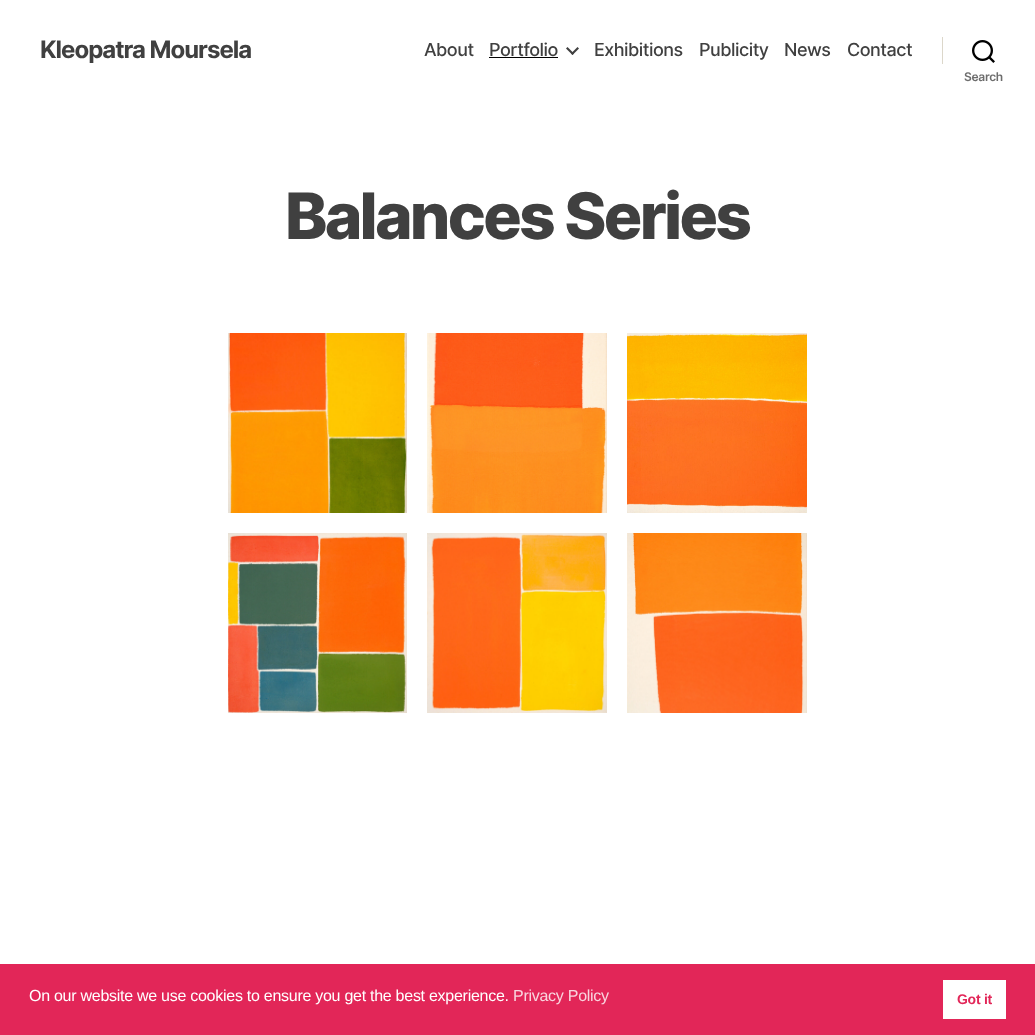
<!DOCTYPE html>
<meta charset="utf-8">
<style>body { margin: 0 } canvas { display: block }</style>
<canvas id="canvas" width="1035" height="1035"></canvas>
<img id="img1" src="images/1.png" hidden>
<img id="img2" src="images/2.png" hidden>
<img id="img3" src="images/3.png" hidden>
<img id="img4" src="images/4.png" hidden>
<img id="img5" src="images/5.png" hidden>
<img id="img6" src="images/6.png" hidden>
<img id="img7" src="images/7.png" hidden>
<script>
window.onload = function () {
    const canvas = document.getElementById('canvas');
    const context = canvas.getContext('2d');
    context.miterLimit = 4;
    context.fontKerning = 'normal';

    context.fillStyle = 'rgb(255, 255, 255)';
    context.fillRect(0, 0, 1035, 1035);
    context.fillStyle = 'rgb(0, 0, 0)';
    context.fillRect(489, 57, 69, 1);
    context.fillStyle = 'rgb(64, 64, 64)';
    context.beginPath();
    context.moveTo(566, 48.5);
    context.lineTo(567.5, 47);
    context.lineTo(574, 53.5);
    context.lineTo(572.5, 55);
    context.closePath();
    context.fill();
    context.beginPath();
    context.moveTo(571, 53.5);
    context.lineTo(577.5, 47);
    context.lineTo(579, 48.5);
    context.lineTo(572.5, 55);
    context.closePath();
    context.fill();
    context.fillStyle = 'rgb(220, 215, 202)';
    context.fillRect(942, 37, 1, 27);
    context.drawImage(document.getElementById('img1'), 972, 40, 23, 23);
    context.drawImage(document.getElementById('img2'), 228, 333, 179, 180);
    context.drawImage(document.getElementById('img3'), 427, 333, 180, 180);
    context.drawImage(document.getElementById('img4'), 627, 333, 180, 180);
    context.drawImage(document.getElementById('img5'), 228, 533, 179, 180);
    context.drawImage(document.getElementById('img6'), 427, 533, 180, 180);
    context.drawImage(document.getElementById('img7'), 627, 533, 180, 180);
    context.fillStyle = 'rgb(226, 38, 88)';
    context.fillRect(0, 964, 1035, 71);
    context.fillStyle = 'rgb(255, 255, 255)';
    context.fillRect(943, 980, 63, 39);
    context.letterSpacing = '-1px';
    context.font = 'bold 24px Inter';
    context.fillStyle = 'rgb(64, 64, 64)';
    context.fillText('Kleopatra Moursela', 40, 58);
    context.letterSpacing = '-0.5px';
    context.font = '500 18px Inter';
    context.fillText('About', 424, 56);
    context.fillText('Portfolio', 489, 56);
    context.fillText('Exhibitions', 594, 56);
    context.fillText('Publicity', 699, 56);
    context.fillText('News', 784, 56);
    context.fillText('Contact', 847, 56);
    context.letterSpacing = '-0.27px';
    context.font = '600 12px Inter';
    context.fillStyle = 'rgb(109, 109, 109)';
    context.fillText('Search', 964, 81);
    context.letterSpacing = '-2.7px';
    context.font = '800 64px Inter';
    context.fillStyle = 'rgb(64, 64, 64)';
    context.fillText('Balances Series', 285, 239);
    context.letterSpacing = '-0.27px';
    context.font = '16px Liberation Sans';
    context.fillStyle = 'rgb(255, 255, 255)';
    context.fillText('On our website we use cookies to ensure you get the best experience.', 29, 1001);
    context.fillStyle = 'rgb(249, 212, 222)';
    context.fillText('Privacy Policy', 513, 1001);
    context.font = 'bold 14px Liberation Sans';
    context.fillStyle = 'rgb(226, 38, 88)';
    context.fillText('Got it', 957, 1004);
};
</script>
